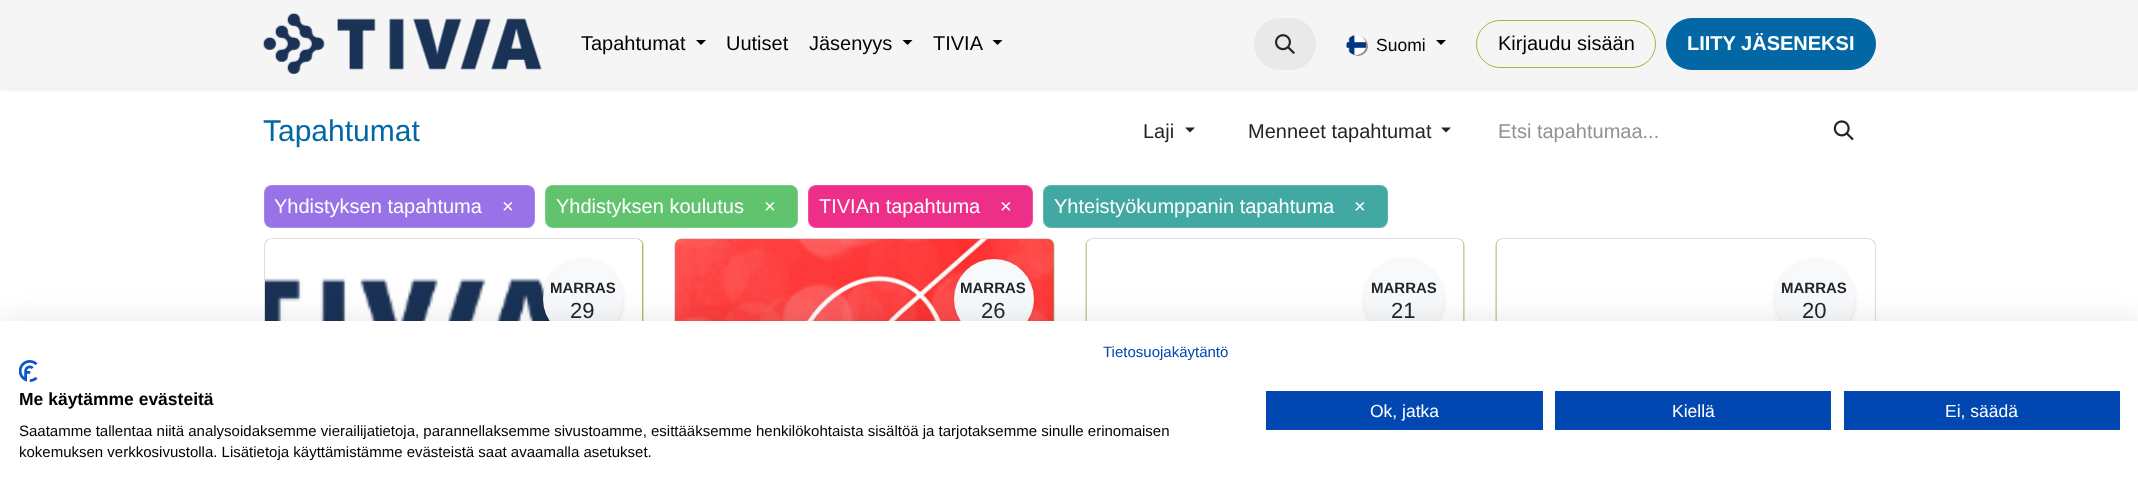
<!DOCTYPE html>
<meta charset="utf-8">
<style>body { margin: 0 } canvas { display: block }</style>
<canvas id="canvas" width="2138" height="496"></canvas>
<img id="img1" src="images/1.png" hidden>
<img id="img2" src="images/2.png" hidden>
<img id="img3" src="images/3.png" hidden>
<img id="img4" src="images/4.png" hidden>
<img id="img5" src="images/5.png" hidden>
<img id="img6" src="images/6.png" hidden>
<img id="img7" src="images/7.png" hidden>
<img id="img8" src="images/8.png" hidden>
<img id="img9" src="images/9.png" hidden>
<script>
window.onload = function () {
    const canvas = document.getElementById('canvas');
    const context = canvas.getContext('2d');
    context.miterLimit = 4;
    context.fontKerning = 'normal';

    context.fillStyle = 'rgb(255, 255, 255)';
    context.fillRect(0, 0, 2138, 496);
    context.fillStyle = 'rgba(0, 0, 0, 0.1)';
    context.filter = 'blur(2px)';
    context.beginPath();
    context.rect(0, 1, 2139, 88);
    context.fill();
    context.filter = 'none';
    context.fillStyle = 'rgb(245, 245, 245)';
    context.fillRect(0, 0, 2138, 88);
    context.drawImage(document.getElementById('img1'), 263, 13, 279, 61);
    context.fillStyle = 'rgb(0, 0, 0)';
    context.beginPath();
    context.moveTo(696, 40);
    context.lineTo(706, 40);
    context.lineTo(701, 45);
    context.closePath();
    context.fill();
    context.beginPath();
    context.moveTo(902.5, 40);
    context.lineTo(912.5, 40);
    context.lineTo(907.5, 45);
    context.closePath();
    context.fill();
    context.beginPath();
    context.moveTo(992.5, 40);
    context.lineTo(1002.5, 40);
    context.lineTo(997.5, 45);
    context.closePath();
    context.fill();
    context.fillStyle = 'rgb(233, 233, 233)';
    context.beginPath();
    context.roundRect(1254, 18, 62, 52, 26);
    context.fill();
    context.drawImage(document.getElementById('img2'), 1275, 34, 20, 20);
    context.fillStyle = 'rgba(0, 0, 0, 0.43)';
    context.filter = 'blur(0.5px)';
    context.beginPath();
    context.roundRect(1348, 36, 20, 20, 10);
    context.fill();
    context.filter = 'none';
    context.drawImage(document.getElementById('img3'), 1346, 35, 21, 20);
    context.fillStyle = 'rgb(0, 0, 0)';
    context.beginPath();
    context.moveTo(1436, 40);
    context.lineTo(1446, 40);
    context.lineTo(1441, 45);
    context.closePath();
    context.fill();
    context.beginPath();
    context.roundRect(1476.5, 20.5, 179, 47, 23.5);
    context.strokeStyle = 'rgb(143, 192, 56)';
    context.stroke();
    context.fillStyle = 'rgb(3, 103, 166)';
    context.beginPath();
    context.roundRect(1666.5, 18.5, 209, 51, 25.5);
    context.fill();
    context.strokeStyle = 'rgb(3, 103, 166)';
    context.stroke();
    context.fillStyle = 'rgb(33, 37, 41)';
    context.beginPath();
    context.moveTo(1185, 127.5);
    context.lineTo(1195, 127.5);
    context.lineTo(1190, 132.5);
    context.closePath();
    context.fill();
    context.beginPath();
    context.moveTo(1441, 127.5);
    context.lineTo(1451, 127.5);
    context.lineTo(1446, 132.5);
    context.closePath();
    context.fill();
    context.drawImage(document.getElementById('img4'), 1833, 120, 21, 21);
    context.fillStyle = 'rgb(152, 114, 230)';
    context.beginPath();
    context.roundRect(264, 185, 271, 43, 8);
    context.fill();
    context.beginPath();
    context.roundRect(264.5, 185.5, 270, 42, 7.5);
    context.strokeStyle = 'rgba(255, 255, 255, 0.15)';
    context.stroke();
    context.fillStyle = 'rgb(97, 195, 110)';
    context.beginPath();
    context.roundRect(545, 185, 253, 43, 8);
    context.fill();
    context.beginPath();
    context.roundRect(545.5, 185.5, 252, 42, 7.5);
    context.stroke();
    context.fillStyle = 'rgb(238, 47, 138)';
    context.beginPath();
    context.roundRect(808, 185, 225, 43, 8);
    context.fill();
    context.beginPath();
    context.roundRect(808.5, 185.5, 224, 42, 7.5);
    context.stroke();
    context.fillStyle = 'rgb(65, 169, 162)';
    context.beginPath();
    context.roundRect(1043, 185, 345, 43, 8);
    context.fill();
    context.beginPath();
    context.roundRect(1043.5, 185.5, 344, 42, 7.5);
    context.stroke();
    context.beginPath();
    context.roundRect(264.5, 238.5, 379, 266, 7.5);
    context.strokeStyle = 'rgb(222, 222, 223)';
    context.stroke();
    context.fillStyle = 'rgb(143, 192, 56)';
    context.beginPath();
    context.roundRect(265, 239, 378, 250, [6, 6, 0, 0]);
    context.fill();
    context.drawImage(document.getElementById('img5'), 265, 239, 378, 82);
    context.fillStyle = 'rgba(0, 0, 0, 0.1)';
    context.filter = 'blur(2px)';
    context.beginPath();
    context.roundRect(543, 260, 80, 80, 40);
    context.fill();
    context.filter = 'none';
    context.fillStyle = 'rgb(248, 249, 250)';
    context.beginPath();
    context.arc(583, 299, 40, 0, 2 * Math.PI);
    context.fill();
    context.beginPath();
    context.roundRect(674.5, 238.5, 380, 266, 7.5);
    context.stroke();
    context.fillStyle = 'rgb(143, 192, 56)';
    context.beginPath();
    context.roundRect(675, 239, 379, 250, [6, 6, 0, 0]);
    context.fill();
    context.drawImage(document.getElementById('img6'), 675, 239, 379, 82);
    context.fillStyle = 'rgba(0, 0, 0, 0.1)';
    context.filter = 'blur(2px)';
    context.beginPath();
    context.roundRect(954, 260, 80, 80, 40);
    context.fill();
    context.filter = 'none';
    context.fillStyle = 'rgb(248, 249, 250)';
    context.beginPath();
    context.arc(994, 299, 40, 0, 2 * Math.PI);
    context.fill();
    context.beginPath();
    context.roundRect(1085.5, 238.5, 379, 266, 7.5);
    context.stroke();
    context.fillStyle = 'rgb(143, 192, 56)';
    context.beginPath();
    context.roundRect(1086, 239, 378, 250, [6, 6, 0, 0]);
    context.fill();
    context.drawImage(document.getElementById('img7'), 1086, 239, 378, 82);
    context.fillStyle = 'rgba(0, 0, 0, 0.1)';
    context.filter = 'blur(2px)';
    context.beginPath();
    context.roundRect(1364, 260, 80, 80, 40);
    context.fill();
    context.filter = 'none';
    context.fillStyle = 'rgb(248, 249, 250)';
    context.beginPath();
    context.arc(1404, 299, 40, 0, 2 * Math.PI);
    context.fill();
    context.beginPath();
    context.roundRect(1495.5, 238.5, 380, 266, 7.5);
    context.stroke();
    context.fillStyle = 'rgb(143, 192, 56)';
    context.beginPath();
    context.roundRect(1496, 239, 379, 250, [6, 6, 0, 0]);
    context.fill();
    context.drawImage(document.getElementById('img8'), 1496, 239, 379, 82);
    context.fillStyle = 'rgba(0, 0, 0, 0.1)';
    context.filter = 'blur(2px)';
    context.beginPath();
    context.roundRect(1775, 260, 80, 80, 40);
    context.fill();
    context.filter = 'none';
    context.fillStyle = 'rgb(248, 249, 250)';
    context.beginPath();
    context.arc(1815, 299, 40, 0, 2 * Math.PI);
    context.fill();
    context.fillStyle = 'rgba(0, 0, 0, 0.1)';
    context.filter = 'blur(15px)';
    context.beginPath();
    context.rect(0, 321, 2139, 175);
    context.fill();
    context.filter = 'none';
    context.fillStyle = 'rgb(255, 255, 255)';
    context.fillRect(0, 321, 2138, 175);
    context.drawImage(document.getElementById('img9'), 19, 360, 19, 22);
    context.fillStyle = 'rgb(0, 71, 178)';
    context.fillRect(1266, 391, 277, 39);
    context.fillRect(1555, 391, 276, 39);
    context.fillRect(1844, 391, 276, 39);
    context.font = '20px Arimo';
    context.fillStyle = 'rgb(0, 0, 0)';
    context.fillText('Tapahtumat', 581, 50);
    context.fillText('Uutiset', 726, 50);
    context.fillText('Jäsenyys', 809, 50);
    context.fillText('TIVIA', 933, 50);
    context.font = '17.5px Arimo';
    context.fillText('Suomi', 1376, 51);
    context.font = '20px Arimo';
    context.fillText('Kirjaudu sisään', 1498, 50);
    context.font = 'bold 20px Arimo';
    context.fillStyle = 'rgb(255, 255, 255)';
    context.fillText('LIITY JÄSENEKSI', 1687, 50);
    context.font = '30px Arimo';
    context.fillStyle = 'rgb(3, 103, 166)';
    context.fillText('Tapahtumat', 263, 141);
    context.font = '20px Arimo';
    context.fillStyle = 'rgb(33, 37, 41)';
    context.fillText('Laji', 1143, 138);
    context.fillText('Menneet tapahtumat', 1248, 138);
    context.fillStyle = 'rgb(144, 146, 148)';
    context.fillText('Etsi tapahtumaa...', 1498, 138);
    context.fillStyle = 'rgb(255, 255, 255)';
    context.fillText('Yhdistyksen tapahtuma', 274, 213);
    context.fillText('×', 502, 213);
    context.fillText('Yhdistyksen koulutus', 556, 213);
    context.fillText('×', 764, 213);
    context.fillText('TIVIAn tapahtuma', 819, 213);
    context.fillText('×', 1000, 213);
    context.fillText('Yhteistyökumppanin tapahtuma', 1054, 213);
    context.fillText('×', 1354, 213);
    context.font = 'bold 15px Arimo';
    context.fillStyle = 'rgb(33, 37, 41)';
    context.fillText('MARRAS', 550, 293);
    context.font = '22px Arimo';
    context.fillText('29', 570, 318);
    context.font = 'bold 15px Arimo';
    context.fillText('MARRAS', 960, 293);
    context.font = '22px Arimo';
    context.fillText('26', 981, 318);
    context.font = 'bold 15px Arimo';
    context.fillText('MARRAS', 1371, 293);
    context.font = '22px Arimo';
    context.fillText('21', 1391, 318);
    context.font = 'bold 15px Arimo';
    context.fillText('MARRAS', 1781, 293);
    context.font = '22px Arimo';
    context.fillText('20', 1802, 318);
    context.font = '15px Arimo';
    context.fillStyle = 'rgb(0, 71, 178)';
    context.fillText('Tietosuojakäytäntö', 1103, 357);
    context.font = 'bold 17.5px Arimo';
    context.fillStyle = 'rgb(0, 0, 0)';
    context.fillText('Me käytämme evästeitä', 19, 405);
    context.font = '15px Arimo';
    context.fillText('Saatamme tallentaa niitä analysoidaksemme vierailijatietoja, parannellaksemme sivustoamme, esittääksemme henkilökohtaista sisältöä ja tarjotaksemme sinulle erinomaisen', 19, 436);
    context.fillText('kokemuksen verkkosivustolla. Lisätietoja käyttämistämme evästeistä saat avaamalla asetukset.', 19, 457);
    context.font = '17.5px Arimo';
    context.fillStyle = 'rgb(255, 255, 255)';
    context.fillText('Ok, jatka', 1370, 417);
    context.fillText('Kiellä', 1672, 417);
    context.fillText('Ei, säädä', 1945, 417);
};
</script>
